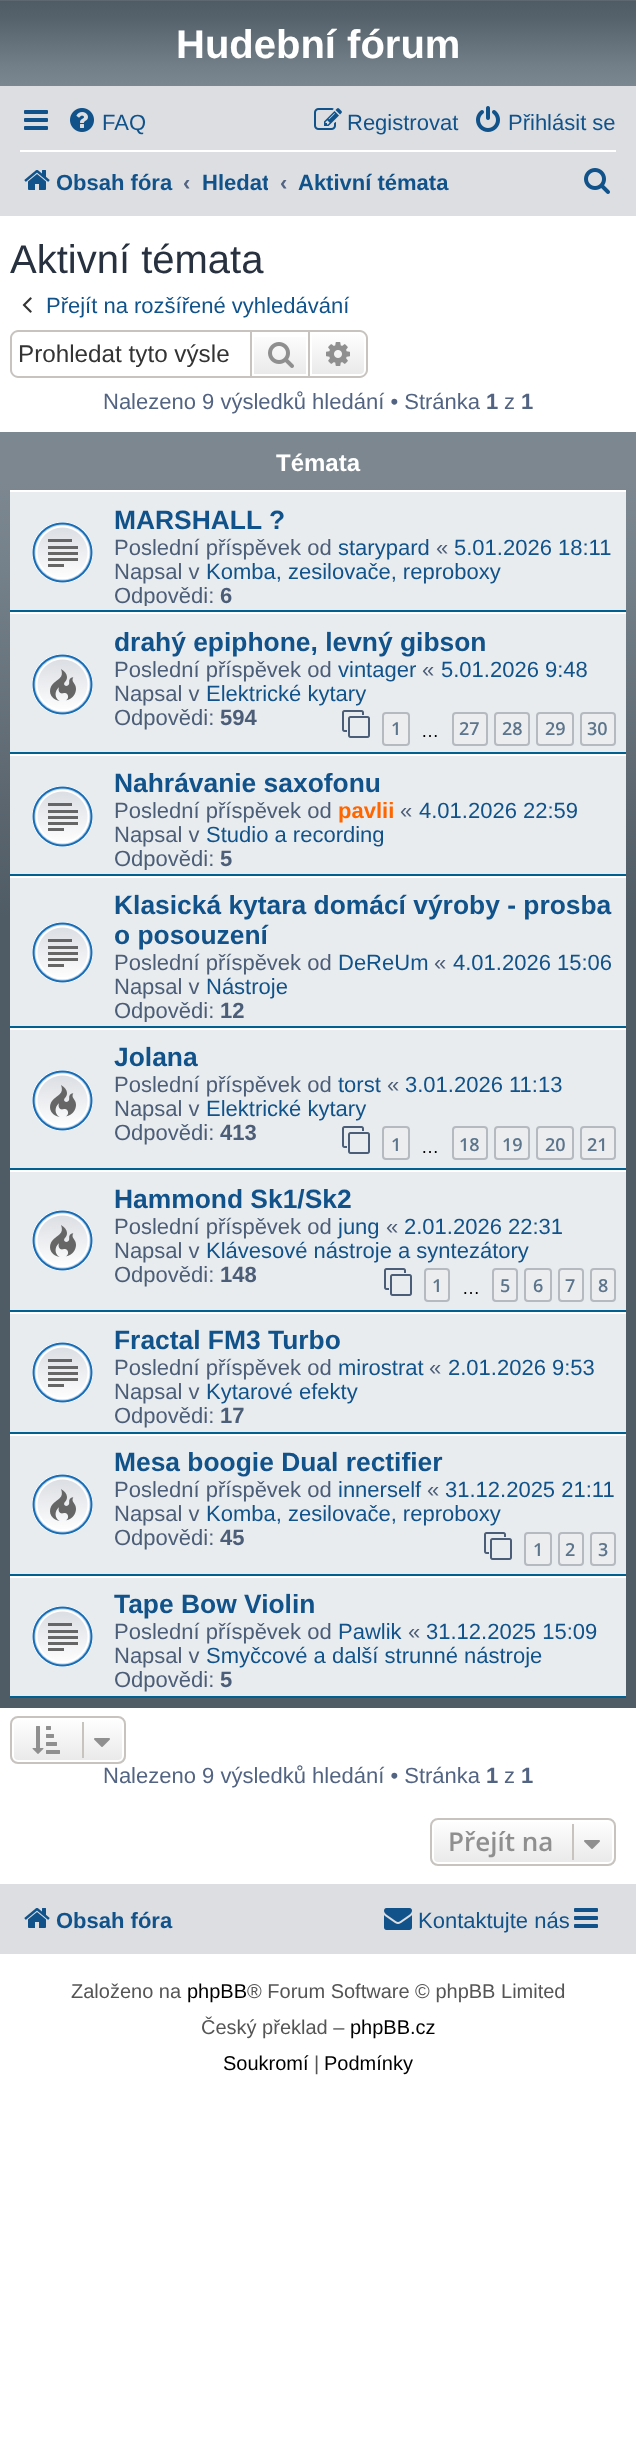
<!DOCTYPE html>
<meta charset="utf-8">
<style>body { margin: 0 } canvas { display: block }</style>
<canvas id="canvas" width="636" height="2440"></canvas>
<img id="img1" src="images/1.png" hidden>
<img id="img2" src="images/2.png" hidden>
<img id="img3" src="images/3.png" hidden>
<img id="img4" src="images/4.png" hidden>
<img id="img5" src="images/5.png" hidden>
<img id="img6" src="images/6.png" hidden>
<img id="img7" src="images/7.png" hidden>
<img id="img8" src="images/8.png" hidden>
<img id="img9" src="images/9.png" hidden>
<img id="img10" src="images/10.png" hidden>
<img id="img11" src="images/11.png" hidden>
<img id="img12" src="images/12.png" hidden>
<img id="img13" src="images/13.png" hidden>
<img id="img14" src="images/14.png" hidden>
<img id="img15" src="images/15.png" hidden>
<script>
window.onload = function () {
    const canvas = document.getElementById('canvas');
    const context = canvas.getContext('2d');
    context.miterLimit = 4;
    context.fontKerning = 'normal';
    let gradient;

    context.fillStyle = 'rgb(255, 255, 255)';
    context.fillRect(0, 0, 636, 2440);
    gradient = context.createLinearGradient(318, 0, 318, 88);
    gradient.addColorStop(0, 'rgb(110, 119, 127)');
    gradient.addColorStop(0.01, 'rgb(80, 92, 101)');
    gradient.addColorStop(0.2, 'rgb(86, 98, 107)');
    gradient.addColorStop(0.75, 'rgb(115, 127, 136)');
    gradient.addColorStop(1, 'rgb(124, 136, 145)');
    context.fillStyle = gradient;
    context.fillRect(0, 0, 636, 86);
    context.fillStyle = 'rgb(220, 222, 226)';
    context.fillRect(0, 86, 636, 130);
    context.drawImage(document.getElementById('img1'), 24, 110, 24, 20);
    context.drawImage(document.getElementById('img2'), 70, 108, 24, 24);
    context.drawImage(document.getElementById('img3'), 314, 108, 28, 22);
    context.drawImage(document.getElementById('img4'), 476, 106, 24, 26);
    context.fillStyle = 'rgb(255, 255, 255)';
    context.fillRect(20, 150, 596, 2);
    context.drawImage(document.getElementById('img5'), 24, 170, 26, 20);
    context.drawImage(document.getElementById('img6'), 584, 168, 26, 26);
    context.drawImage(document.getElementById('img7'), 22, 297, 10, 16);
    context.fillStyle = 'rgb(199, 195, 191)';
    context.beginPath();
    context.moveTo(18, 330);
    context.lineTo(250, 330);
    context.lineTo(250, 378);
    context.lineTo(18, 378);
    context.bezierCurveTo(14, 378, 10, 374, 10, 370);
    context.lineTo(10, 338);
    context.bezierCurveTo(10, 334, 14, 330, 18, 330);
    context.closePath();
    context.moveTo(18, 332);
    context.lineTo(250, 332);
    context.lineTo(250, 376);
    context.lineTo(18, 376);
    context.bezierCurveTo(15, 376, 12, 373, 12, 370);
    context.lineTo(12, 338);
    context.bezierCurveTo(12, 335, 15, 332, 18, 332);
    context.closePath();
    context.fill('evenodd');
    gradient = context.createLinearGradient(280, 332, 280, 376);
    gradient.addColorStop(0, 'rgb(255, 255, 255)');
    gradient.addColorStop(1, 'rgb(233, 233, 233)');
    context.fillStyle = gradient;
    context.fillRect(254, 337, 52, 37);
    context.strokeStyle = 'rgb(199, 195, 191)';
    context.lineWidth = 2;
    context.strokeRect(251, 331, 58, 46);
    context.drawImage(document.getElementById('img8'), 268, 342, 26, 26);
    gradient = context.createLinearGradient(338, 332, 338, 376);
    gradient.addColorStop(0, 'rgb(255, 255, 255)');
    gradient.addColorStop(1, 'rgb(233, 233, 233)');
    context.fillStyle = gradient;
    context.beginPath();
    context.roundRect(311, 333, 54, 42, [0, 5, 5, 0]);
    context.fill();
    context.strokeStyle = 'rgb(255, 255, 255)';
    context.stroke();
    context.fillStyle = 'rgb(199, 195, 191)';
    context.beginPath();
    context.moveTo(310, 330);
    context.lineTo(360, 330);
    context.bezierCurveTo(364, 330, 368, 334, 368, 338);
    context.lineTo(368, 370);
    context.bezierCurveTo(368, 374, 364, 378, 360, 378);
    context.lineTo(310, 378);
    context.closePath();
    context.moveTo(310, 332);
    context.lineTo(360, 332);
    context.bezierCurveTo(363, 332, 366, 335, 366, 338);
    context.lineTo(366, 370);
    context.bezierCurveTo(366, 373, 363, 376, 360, 376);
    context.lineTo(310, 376);
    context.closePath();
    context.fill('evenodd');
    context.drawImage(document.getElementById('img9'), 326, 342, 24, 24);
    gradient = context.createLinearGradient(318, 432, 318, 1708);
    gradient.addColorStop(0, 'rgb(124, 136, 145)');
    gradient.addColorStop(0.04, 'rgb(124, 135, 144)');
    gradient.addColorStop(0.1, 'rgb(118, 130, 139)');
    gradient.addColorStop(0.29, 'rgb(91, 102, 111)');
    gradient.addColorStop(0.38, 'rgb(80, 92, 101)');
    gradient.addColorStop(1, 'rgb(80, 92, 101)');
    context.fillStyle = gradient;
    context.fillRect(0, 432, 636, 1276);
    context.fillStyle = 'rgb(232, 236, 238)';
    context.fillRect(10, 492, 616, 118);
    context.fillStyle = 'rgb(255, 255, 255)';
    context.fillRect(10, 490, 616, 2);
    context.fillStyle = 'rgb(0, 96, 143)';
    context.fillRect(10, 610, 616, 2);
    context.drawImage(document.getElementById('img10'), 32, 522, 61, 61);
    context.fillStyle = 'rgb(232, 236, 238)';
    context.fillRect(10, 614, 616, 138);
    context.fillStyle = 'rgb(255, 255, 255)';
    context.fillRect(10, 612, 616, 2);
    context.fillStyle = 'rgb(0, 96, 143)';
    context.fillRect(10, 752, 616, 2);
    context.drawImage(document.getElementById('img11'), 32, 654, 61, 61);
    context.drawImage(document.getElementById('img12'), 342, 710, 28, 28);
    context.fillStyle = 'rgb(236, 237, 238)';
    context.beginPath();
    context.roundRect(383, 713, 26, 32, 3);
    context.fill();
    context.strokeStyle = 'rgb(180, 186, 192)';
    context.stroke();
    context.beginPath();
    context.roundRect(453, 713, 34, 32, 3);
    context.fill();
    context.stroke();
    context.beginPath();
    context.roundRect(495, 713, 34, 32, 3);
    context.fill();
    context.stroke();
    context.beginPath();
    context.roundRect(537, 713, 36, 32, 3);
    context.fill();
    context.stroke();
    context.beginPath();
    context.roundRect(581, 713, 34, 32, 3);
    context.fill();
    context.stroke();
    context.fillStyle = 'rgb(232, 236, 238)';
    context.fillRect(10, 756, 616, 118);
    context.fillStyle = 'rgb(255, 255, 255)';
    context.fillRect(10, 754, 616, 2);
    context.fillStyle = 'rgb(0, 96, 143)';
    context.fillRect(10, 874, 616, 2);
    context.drawImage(document.getElementById('img10'), 32, 786, 61, 61);
    context.fillStyle = 'rgb(232, 236, 238)';
    context.fillRect(10, 878, 616, 148);
    context.fillStyle = 'rgb(255, 255, 255)';
    context.fillRect(10, 876, 616, 2);
    context.fillStyle = 'rgb(0, 96, 143)';
    context.fillRect(10, 1026, 616, 2);
    context.drawImage(document.getElementById('img10'), 32, 922, 61, 61);
    context.fillStyle = 'rgb(232, 236, 238)';
    context.fillRect(10, 1030, 616, 138);
    context.fillStyle = 'rgb(255, 255, 255)';
    context.fillRect(10, 1028, 616, 2);
    context.fillStyle = 'rgb(0, 96, 143)';
    context.fillRect(10, 1168, 616, 2);
    context.drawImage(document.getElementById('img11'), 32, 1070, 61, 61);
    context.drawImage(document.getElementById('img12'), 342, 1126, 28, 28);
    context.fillStyle = 'rgb(236, 237, 238)';
    context.beginPath();
    context.roundRect(383, 1127, 26, 32, 3);
    context.fill();
    context.stroke();
    context.beginPath();
    context.roundRect(453, 1127, 34, 32, 3);
    context.fill();
    context.stroke();
    context.beginPath();
    context.roundRect(495, 1127, 34, 32, 3);
    context.fill();
    context.stroke();
    context.beginPath();
    context.roundRect(537, 1127, 36, 32, 3);
    context.fill();
    context.stroke();
    context.beginPath();
    context.roundRect(581, 1127, 34, 32, 3);
    context.fill();
    context.stroke();
    context.fillStyle = 'rgb(232, 236, 238)';
    context.fillRect(10, 1172, 616, 138);
    context.fillStyle = 'rgb(255, 255, 255)';
    context.fillRect(10, 1170, 616, 2);
    context.fillStyle = 'rgb(0, 96, 143)';
    context.fillRect(10, 1310, 616, 2);
    context.drawImage(document.getElementById('img11'), 32, 1210, 61, 61);
    context.drawImage(document.getElementById('img12'), 384, 1268, 28, 28);
    context.fillStyle = 'rgb(236, 237, 238)';
    context.beginPath();
    context.roundRect(425, 1269, 24, 32, 3);
    context.fill();
    context.stroke();
    context.beginPath();
    context.roundRect(493, 1269, 24, 32, 3);
    context.fill();
    context.stroke();
    context.beginPath();
    context.roundRect(525, 1269, 26, 32, 3);
    context.fill();
    context.stroke();
    context.beginPath();
    context.roundRect(559, 1269, 24, 32, 3);
    context.fill();
    context.stroke();
    context.beginPath();
    context.roundRect(591, 1269, 24, 32, 3);
    context.fill();
    context.stroke();
    context.fillStyle = 'rgb(232, 236, 238)';
    context.fillRect(10, 1314, 616, 118);
    context.fillStyle = 'rgb(255, 255, 255)';
    context.fillRect(10, 1312, 616, 2);
    context.fillStyle = 'rgb(0, 96, 143)';
    context.fillRect(10, 1432, 616, 2);
    context.drawImage(document.getElementById('img10'), 32, 1342, 61, 61);
    context.fillStyle = 'rgb(232, 236, 238)';
    context.fillRect(10, 1436, 616, 138);
    context.fillStyle = 'rgb(255, 255, 255)';
    context.fillRect(10, 1434, 616, 2);
    context.fillStyle = 'rgb(0, 96, 143)';
    context.fillRect(10, 1574, 616, 2);
    context.drawImage(document.getElementById('img11'), 32, 1474, 61, 61);
    context.drawImage(document.getElementById('img12'), 484, 1532, 28, 28);
    context.fillStyle = 'rgb(236, 237, 238)';
    context.beginPath();
    context.roundRect(525, 1533, 26, 32, 3);
    context.fill();
    context.stroke();
    context.beginPath();
    context.roundRect(559, 1533, 24, 32, 3);
    context.fill();
    context.stroke();
    context.beginPath();
    context.roundRect(591, 1533, 24, 32, 3);
    context.fill();
    context.stroke();
    context.fillStyle = 'rgb(232, 236, 238)';
    context.fillRect(10, 1578, 616, 118);
    context.fillStyle = 'rgb(255, 255, 255)';
    context.fillRect(10, 1576, 616, 2);
    context.fillStyle = 'rgb(0, 96, 143)';
    context.fillRect(10, 1696, 616, 2);
    context.drawImage(document.getElementById('img10'), 32, 1606, 61, 61);
    context.save();
    context.beginPath();
    context.roundRect(10, 1716, 116, 48, 8);
    context.clip();
    gradient = context.createLinearGradient(68, 1718, 68, 1762);
    gradient.addColorStop(0, 'rgb(255, 255, 255)');
    gradient.addColorStop(1, 'rgb(233, 233, 233)');
    context.fillStyle = gradient;
    context.fillRect(10, 1718, 116, 44);
    context.restore();
    context.beginPath();
    context.roundRect(13, 1719, 110, 42, 5);
    context.strokeStyle = 'rgb(255, 255, 255)';
    context.stroke();
    context.beginPath();
    context.roundRect(11, 1717, 114, 46, 7);
    context.strokeStyle = 'rgb(199, 195, 191)';
    context.stroke();
    context.drawImage(document.getElementById('img13'), 32, 1726, 28, 28);
    context.fillStyle = 'rgb(199, 195, 191)';
    context.fillRect(82, 1722, 2, 36);
    context.drawImage(document.getElementById('img14'), 94, 1738, 16, 9);
    context.save();
    context.beginPath();
    context.roundRect(430, 1818, 186, 48, 8);
    context.clip();
    gradient = context.createLinearGradient(523, 1820, 523, 1864);
    gradient.addColorStop(0, 'rgb(255, 255, 255)');
    gradient.addColorStop(1, 'rgb(233, 233, 233)');
    context.fillStyle = gradient;
    context.fillRect(430, 1820, 186, 44);
    context.restore();
    context.beginPath();
    context.roundRect(433, 1821, 180, 42, 5);
    context.strokeStyle = 'rgb(255, 255, 255)';
    context.stroke();
    context.beginPath();
    context.roundRect(431, 1819, 184, 46, 7);
    context.strokeStyle = 'rgb(199, 195, 191)';
    context.stroke();
    context.fillRect(572, 1824, 2, 36);
    context.drawImage(document.getElementById('img14'), 584, 1840, 16, 9);
    context.fillStyle = 'rgb(220, 222, 226)';
    context.fillRect(0, 1884, 636, 70);
    context.drawImage(document.getElementById('img5'), 24, 1908, 26, 20);
    context.drawImage(document.getElementById('img15'), 384, 1908, 28, 22);
    context.drawImage(document.getElementById('img1'), 574, 1908, 24, 20);
    context.font = 'bold 40px Liberation Sans';
    context.fillStyle = 'rgb(255, 255, 255)';
    context.fillText('Hudební fórum', 176, 58);
    context.font = '22px Liberation Sans';
    context.fillStyle = 'rgb(16, 82, 137)';
    context.fillText('FAQ', 102, 130);
    context.fillText('Registrovat', 347, 130);
    context.fillText('Přihlásit se', 508, 130);
    context.font = 'bold 22px Liberation Sans';
    context.fillText('Obsah fóra', 56, 190);
    context.fillStyle = 'rgb(83, 100, 130)';
    context.fillText('‹', 183, 190);
    context.save();
    context.beginPath();
    context.rect(202, 158, 66, 48);
    context.clip();
    context.fillStyle = 'rgb(16, 82, 137)';
    context.fillText('Hledat', 202, 190);
    context.restore();
    context.fillText('‹', 280, 190);
    context.fillStyle = 'rgb(16, 82, 137)';
    context.fillText('Aktivní témata', 298, 190);
    context.font = '40px Liberation Sans';
    context.fillStyle = 'rgb(40, 49, 63)';
    context.fillText('Aktivní témata', 10, 273);
    context.font = '22px Liberation Sans';
    context.fillStyle = 'rgb(16, 82, 137)';
    context.fillText('Přejít na rozšířené vyhledávání', 46, 313);
    context.font = '24.25px Liberation Sans';
    context.fillStyle = 'rgb(51, 51, 51)';
    context.fillText('Prohledat tyto výsle', 18, 362);
    context.font = '22px Liberation Sans';
    context.fillStyle = 'rgb(83, 100, 130)';
    context.fillText('Nalezeno 9 výsledků hledání • Stránka', 103, 409);
    context.font = 'bold 22px Liberation Sans';
    context.fillText('1', 486, 409);
    context.font = '22px Liberation Sans';
    context.fillText('z', 504, 409);
    context.font = 'bold 22px Liberation Sans';
    context.fillText('1', 521, 409);
    context.font = 'bold 24px Liberation Sans';
    context.fillStyle = 'rgb(255, 255, 255)';
    context.fillText('Témata', 276, 471);
    context.font = 'bold 26.4px Liberation Sans';
    context.fillStyle = 'rgb(16, 82, 137)';
    context.fillText('MARSHALL ?', 114, 529);
    context.font = '22px Liberation Sans';
    context.fillStyle = 'rgb(76, 93, 119)';
    context.fillText('Poslední příspěvek od', 114, 555);
    context.fillStyle = 'rgb(16, 82, 137)';
    context.fillText('starypard', 338, 555);
    context.fillStyle = 'rgb(76, 93, 119)';
    context.fillText('«', 436, 555);
    context.fillStyle = 'rgb(16, 82, 137)';
    context.fillText('5.01.2026 18:11', 454, 555);
    context.fillStyle = 'rgb(76, 93, 119)';
    context.fillText('Napsal v', 114, 579);
    context.fillStyle = 'rgb(16, 82, 137)';
    context.fillText('Komba, zesilovače, reproboxy', 206, 579);
    context.save();
    context.beginPath();
    context.rect(10, 496, 616, 110);
    context.clip();
    context.fillStyle = 'rgb(76, 93, 119)';
    context.fillText('Odpovědi:', 114, 603);
    context.restore();
    context.font = 'bold 22px Liberation Sans';
    context.fillStyle = 'rgb(76, 93, 119)';
    context.fillText('6', 220, 603);
    context.font = 'bold 26.4px Liberation Sans';
    context.fillStyle = 'rgb(16, 82, 137)';
    context.fillText('drahý epiphone, levný gibson', 114, 651);
    context.font = '22px Liberation Sans';
    context.fillStyle = 'rgb(76, 93, 119)';
    context.fillText('Poslední příspěvek od', 114, 677);
    context.fillStyle = 'rgb(16, 82, 137)';
    context.fillText('vintager', 338, 677);
    context.fillStyle = 'rgb(76, 93, 119)';
    context.fillText('«', 422, 677);
    context.fillStyle = 'rgb(16, 82, 137)';
    context.fillText('5.01.2026 9:48', 441, 677);
    context.fillStyle = 'rgb(76, 93, 119)';
    context.fillText('Napsal v', 114, 701);
    context.fillStyle = 'rgb(16, 82, 137)';
    context.fillText('Elektrické kytary', 206, 701);
    context.fillStyle = 'rgb(76, 93, 119)';
    context.fillText('Odpovědi:', 114, 725);
    context.font = 'bold 22px Liberation Sans';
    context.fillText('594', 220, 725);
    context.font = '600 18px Open Sans';
    context.fillStyle = 'rgb(92, 117, 140)';
    context.fillText('1', 391, 735);
    context.fillText('27', 459, 735);
    context.fillText('28', 502, 735);
    context.fillText('29', 545, 735);
    context.fillText('30', 587, 735);
    context.font = '18px Liberation Sans';
    context.fillStyle = 'rgb(0, 0, 0)';
    context.fillText('…', 421, 737);
    context.font = 'bold 26.4px Liberation Sans';
    context.fillStyle = 'rgb(16, 82, 137)';
    context.fillText('Nahrávanie saxofonu', 114, 792);
    context.font = '22px Liberation Sans';
    context.fillStyle = 'rgb(76, 93, 119)';
    context.fillText('Poslední příspěvek od', 114, 818);
    context.font = 'bold 22px Liberation Sans';
    context.fillStyle = 'rgb(255, 102, 0)';
    context.fillText('pavlii', 338, 818);
    context.font = '22px Liberation Sans';
    context.fillStyle = 'rgb(76, 93, 119)';
    context.fillText('«', 400, 818);
    context.fillStyle = 'rgb(16, 82, 137)';
    context.fillText('4.01.2026 22:59', 419, 818);
    context.fillStyle = 'rgb(76, 93, 119)';
    context.fillText('Napsal v', 114, 842);
    context.fillStyle = 'rgb(16, 82, 137)';
    context.fillText('Studio a recording', 206, 842);
    context.save();
    context.beginPath();
    context.rect(10, 760, 616, 110);
    context.clip();
    context.fillStyle = 'rgb(76, 93, 119)';
    context.fillText('Odpovědi:', 114, 866);
    context.restore();
    context.font = 'bold 22px Liberation Sans';
    context.fillStyle = 'rgb(76, 93, 119)';
    context.fillText('5', 220, 866);
    context.font = 'bold 26.4px Liberation Sans';
    context.fillStyle = 'rgb(16, 82, 137)';
    context.fillText('Klasická kytara domácí výroby - prosba', 114, 914);
    context.fillText('o posouzení', 114, 944);
    context.font = '22px Liberation Sans';
    context.fillStyle = 'rgb(76, 93, 119)';
    context.fillText('Poslední příspěvek od', 114, 970);
    context.fillStyle = 'rgb(16, 82, 137)';
    context.fillText('DeReUm', 338, 970);
    context.fillStyle = 'rgb(76, 93, 119)';
    context.fillText('«', 434, 970);
    context.fillStyle = 'rgb(16, 82, 137)';
    context.fillText('4.01.2026 15:06', 453, 970);
    context.fillStyle = 'rgb(76, 93, 119)';
    context.fillText('Napsal v', 114, 994);
    context.fillStyle = 'rgb(16, 82, 137)';
    context.fillText('Nástroje', 206, 994);
    context.save();
    context.beginPath();
    context.rect(10, 882, 616, 140);
    context.clip();
    context.fillStyle = 'rgb(76, 93, 119)';
    context.fillText('Odpovědi:', 114, 1018);
    context.restore();
    context.font = 'bold 22px Liberation Sans';
    context.fillStyle = 'rgb(76, 93, 119)';
    context.fillText('12', 220, 1018);
    context.font = 'bold 26.4px Liberation Sans';
    context.fillStyle = 'rgb(16, 82, 137)';
    context.fillText('Jolana', 114, 1066);
    context.font = '22px Liberation Sans';
    context.fillStyle = 'rgb(76, 93, 119)';
    context.fillText('Poslední příspěvek od', 114, 1092);
    context.fillStyle = 'rgb(16, 82, 137)';
    context.fillText('torst', 338, 1092);
    context.fillStyle = 'rgb(76, 93, 119)';
    context.fillText('«', 387, 1092);
    context.fillStyle = 'rgb(16, 82, 137)';
    context.fillText('3.01.2026 11:13', 405, 1092);
    context.fillStyle = 'rgb(76, 93, 119)';
    context.fillText('Napsal v', 114, 1116);
    context.fillStyle = 'rgb(16, 82, 137)';
    context.fillText('Elektrické kytary', 206, 1116);
    context.fillStyle = 'rgb(76, 93, 119)';
    context.fillText('Odpovědi:', 114, 1140);
    context.font = 'bold 22px Liberation Sans';
    context.fillText('413', 220, 1140);
    context.font = '600 18px Open Sans';
    context.fillStyle = 'rgb(92, 117, 140)';
    context.fillText('1', 391, 1151);
    context.font = '18px Liberation Sans';
    context.fillStyle = 'rgb(0, 0, 0)';
    context.fillText('…', 421, 1153);
    context.font = '600 18px Open Sans';
    context.fillStyle = 'rgb(92, 117, 140)';
    context.fillText('18', 459, 1151);
    context.fillText('19', 502, 1151);
    context.fillText('20', 545, 1151);
    context.fillText('21', 587, 1151);
    context.font = 'bold 26.4px Liberation Sans';
    context.fillStyle = 'rgb(16, 82, 137)';
    context.fillText('Hammond Sk1/Sk2', 114, 1208);
    context.font = '22px Liberation Sans';
    context.fillStyle = 'rgb(76, 93, 119)';
    context.fillText('Poslední příspěvek od', 114, 1234);
    context.fillStyle = 'rgb(16, 82, 137)';
    context.fillText('jung', 338, 1234);
    context.fillStyle = 'rgb(76, 93, 119)';
    context.fillText('«', 386, 1234);
    context.fillStyle = 'rgb(16, 82, 137)';
    context.fillText('2.01.2026 22:31', 404, 1234);
    context.fillStyle = 'rgb(76, 93, 119)';
    context.fillText('Napsal v', 114, 1258);
    context.fillStyle = 'rgb(16, 82, 137)';
    context.fillText('Klávesové nástroje a syntezátory', 206, 1258);
    context.fillStyle = 'rgb(76, 93, 119)';
    context.fillText('Odpovědi:', 114, 1282);
    context.font = 'bold 22px Liberation Sans';
    context.fillText('148', 220, 1282);
    context.font = '600 18px Open Sans';
    context.fillStyle = 'rgb(92, 117, 140)';
    context.fillText('1', 432, 1292);
    context.font = '18px Liberation Sans';
    context.fillStyle = 'rgb(0, 0, 0)';
    context.fillText('…', 462, 1294);
    context.font = '600 18px Open Sans';
    context.fillStyle = 'rgb(92, 117, 140)';
    context.fillText('5', 500, 1292);
    context.fillText('6', 533, 1292);
    context.fillText('7', 565, 1292);
    context.fillText('8', 598, 1292);
    context.font = 'bold 26.4px Liberation Sans';
    context.fillStyle = 'rgb(16, 82, 137)';
    context.fillText('Fractal FM3 Turbo', 114, 1349);
    context.font = '22px Liberation Sans';
    context.fillStyle = 'rgb(76, 93, 119)';
    context.fillText('Poslední příspěvek od', 114, 1375);
    context.fillStyle = 'rgb(16, 82, 137)';
    context.fillText('mirostrat', 338, 1375);
    context.fillStyle = 'rgb(76, 93, 119)';
    context.fillText('«', 429, 1375);
    context.fillStyle = 'rgb(16, 82, 137)';
    context.fillText('2.01.2026 9:53', 448, 1375);
    context.fillStyle = 'rgb(76, 93, 119)';
    context.fillText('Napsal v', 114, 1399);
    context.fillStyle = 'rgb(16, 82, 137)';
    context.fillText('Kytarové efekty', 206, 1399);
    context.fillStyle = 'rgb(76, 93, 119)';
    context.fillText('Odpovědi:', 114, 1423);
    context.font = 'bold 22px Liberation Sans';
    context.fillText('17', 220, 1423);
    context.font = 'bold 26.4px Liberation Sans';
    context.fillStyle = 'rgb(16, 82, 137)';
    context.fillText('Mesa boogie Dual rectifier', 114, 1471);
    context.font = '22px Liberation Sans';
    context.fillStyle = 'rgb(76, 93, 119)';
    context.fillText('Poslední příspěvek od', 114, 1497);
    context.fillStyle = 'rgb(16, 82, 137)';
    context.fillText('innerself', 338, 1497);
    context.fillStyle = 'rgb(76, 93, 119)';
    context.fillText('«', 427, 1497);
    context.fillStyle = 'rgb(16, 82, 137)';
    context.fillText('31.12.2025 21:11', 445, 1497);
    context.fillStyle = 'rgb(76, 93, 119)';
    context.fillText('Napsal v', 114, 1521);
    context.fillStyle = 'rgb(16, 82, 137)';
    context.fillText('Komba, zesilovače, reproboxy', 206, 1521);
    context.fillStyle = 'rgb(76, 93, 119)';
    context.fillText('Odpovědi:', 114, 1545);
    context.font = 'bold 22px Liberation Sans';
    context.fillText('45', 220, 1545);
    context.font = '600 18px Open Sans';
    context.fillStyle = 'rgb(92, 117, 140)';
    context.fillText('1', 533, 1556);
    context.fillText('2', 565, 1556);
    context.fillText('3', 598, 1556);
    context.font = 'bold 26.4px Liberation Sans';
    context.fillStyle = 'rgb(16, 82, 137)';
    context.fillText('Tape Bow Violin', 114, 1613);
    context.font = '22px Liberation Sans';
    context.fillStyle = 'rgb(76, 93, 119)';
    context.fillText('Poslední příspěvek od', 114, 1639);
    context.fillStyle = 'rgb(16, 82, 137)';
    context.fillText('Pawlik', 338, 1639);
    context.fillStyle = 'rgb(76, 93, 119)';
    context.fillText('«', 408, 1639);
    context.fillStyle = 'rgb(16, 82, 137)';
    context.fillText('31.12.2025 15:09', 426, 1639);
    context.fillStyle = 'rgb(76, 93, 119)';
    context.fillText('Napsal v', 114, 1663);
    context.fillStyle = 'rgb(16, 82, 137)';
    context.fillText('Smyčcové a další strunné nástroje', 206, 1663);
    context.fillStyle = 'rgb(76, 93, 119)';
    context.fillText('Odpovědi:', 114, 1687);
    context.font = 'bold 22px Liberation Sans';
    context.fillText('5', 220, 1687);
    context.font = '22px Liberation Sans';
    context.fillStyle = 'rgb(83, 100, 130)';
    context.fillText('Nalezeno 9 výsledků hledání • Stránka', 103, 1783);
    context.font = 'bold 22px Liberation Sans';
    context.fillText('1', 486, 1783);
    context.font = '22px Liberation Sans';
    context.fillText('z', 504, 1783);
    context.font = 'bold 22px Liberation Sans';
    context.fillText('1', 521, 1783);
    context.font = '600 26px Open Sans';
    context.fillStyle = 'rgb(143, 143, 143)';
    context.fillText('Přejít na', 448, 1851);
    context.font = 'bold 22px Liberation Sans';
    context.fillStyle = 'rgb(16, 82, 137)';
    context.fillText('Obsah fóra', 56, 1928);
    context.font = '22px Liberation Sans';
    context.fillText('Kontaktujte nás', 418, 1928);
    context.font = '20px Liberation Sans';
    context.fillStyle = 'rgb(85, 85, 85)';
    context.fillText('Založeno na', 71, 1998);
    context.fillStyle = 'rgb(0, 0, 0)';
    context.fillText('phpBB', 187, 1998);
    context.fillStyle = 'rgb(85, 85, 85)';
    context.fillText('® Forum Software © phpBB Limited', 247, 1998);
    context.fillText('Český překlad –', 201, 2034);
    context.fillStyle = 'rgb(0, 0, 0)';
    context.fillText('phpBB.cz', 350, 2034);
    context.fillText('Soukromí', 223, 2070);
    context.fillStyle = 'rgb(85, 85, 85)';
    context.fillText('|', 314, 2070);
    context.fillStyle = 'rgb(0, 0, 0)';
    context.fillText('Podmínky', 324, 2070);
};
</script>
